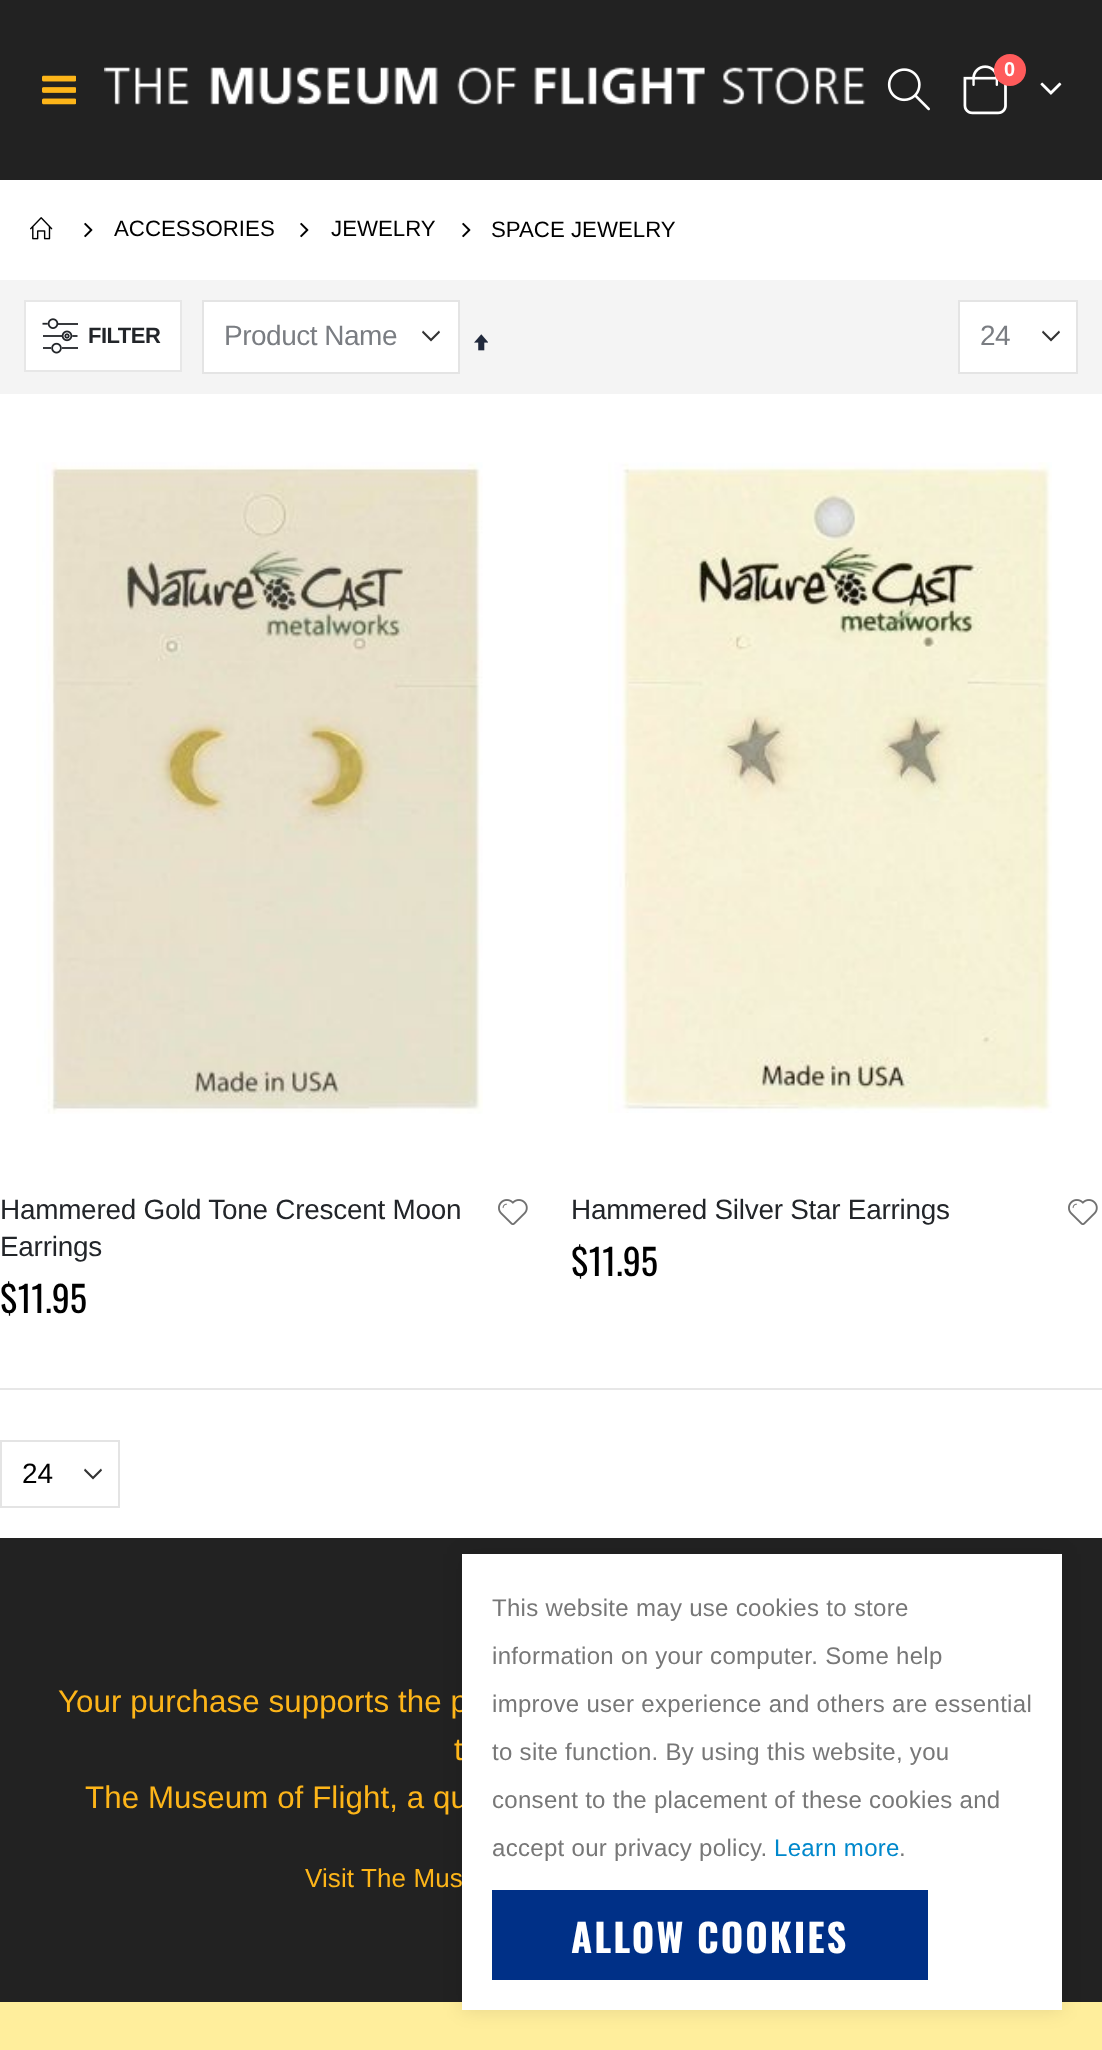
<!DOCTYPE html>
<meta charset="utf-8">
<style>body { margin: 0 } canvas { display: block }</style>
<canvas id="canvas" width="1102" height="2050"></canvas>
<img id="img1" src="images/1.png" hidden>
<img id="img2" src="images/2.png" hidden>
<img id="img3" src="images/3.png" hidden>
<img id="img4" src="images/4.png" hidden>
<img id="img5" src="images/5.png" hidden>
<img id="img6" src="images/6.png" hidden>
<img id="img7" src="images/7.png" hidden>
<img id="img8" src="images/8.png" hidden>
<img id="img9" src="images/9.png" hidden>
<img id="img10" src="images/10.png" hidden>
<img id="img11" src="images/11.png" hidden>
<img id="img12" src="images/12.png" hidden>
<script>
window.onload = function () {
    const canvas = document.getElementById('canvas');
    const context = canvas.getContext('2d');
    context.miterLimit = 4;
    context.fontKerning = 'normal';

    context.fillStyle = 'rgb(255, 255, 255)';
    context.fillRect(0, 0, 1102, 2050);
    context.fillStyle = 'rgb(34, 34, 34)';
    context.fillRect(0, 0, 1102, 180);
    context.drawImage(document.getElementById('img1'), 42, 75, 34, 30);
    context.drawImage(document.getElementById('img2'), 104, 67, 762, 38);
    context.drawImage(document.getElementById('img3'), 887, 68, 43, 43);
    context.drawImage(document.getElementById('img4'), 963, 65, 44, 50);
    context.fillStyle = 'rgb(255, 91, 91)';
    context.beginPath();
    context.arc(1010, 70, 16, 0, 2 * Math.PI);
    context.fill();
    context.drawImage(document.getElementById('img5'), 1040, 82, 22, 13);
    context.drawImage(document.getElementById('img6'), 30, 217, 23, 23);
    context.drawImage(document.getElementById('img7'), 84, 222, 9, 16);
    context.drawImage(document.getElementById('img7'), 300, 222, 9, 16);
    context.drawImage(document.getElementById('img7'), 462, 222, 9, 16);
    context.fillStyle = 'rgb(244, 244, 244)';
    context.fillRect(0, 280, 1102, 114);
    context.fillStyle = 'rgb(255, 255, 255)';
    context.beginPath();
    context.rect(25, 301, 156, 70);
    context.fill();
    context.strokeStyle = 'rgb(231, 231, 231)';
    context.lineWidth = 2;
    context.stroke();
    context.drawImage(document.getElementById('img8'), 42, 318, 36, 36);
    context.fillRect(204, 302, 254, 70);
    context.fillStyle = 'rgb(51, 51, 51)';
    context.beginPath();
    context.moveTo(431, 341.5);
    context.lineTo(440, 332.5);
    context.lineTo(439, 330.5);
    context.lineTo(431, 338.5);
    context.lineTo(423, 330.5);
    context.lineTo(422, 332.5);
    context.closePath();
    context.fill('evenodd');
    context.strokeStyle = 'rgb(228, 228, 228)';
    context.strokeRect(203, 301, 256, 72);
    context.drawImage(document.getElementById('img9'), 474, 334, 14, 17);
    context.fillStyle = 'rgb(255, 255, 255)';
    context.fillRect(960, 302, 116, 70);
    context.fillStyle = 'rgb(51, 51, 51)';
    context.beginPath();
    context.moveTo(1051, 341.5);
    context.lineTo(1060, 332.5);
    context.lineTo(1059, 330.5);
    context.lineTo(1051, 338.5);
    context.lineTo(1043, 330.5);
    context.lineTo(1042, 332.5);
    context.closePath();
    context.fill('evenodd');
    context.strokeRect(959, 301, 118, 72);
    context.drawImage(document.getElementById('img10'), 36, 462, 447, 652);
    context.drawImage(document.getElementById('img11'), 498, 1199, 30, 26);
    context.drawImage(document.getElementById('img12'), 608, 462, 444, 651);
    context.drawImage(document.getElementById('img11'), 1068, 1199, 30, 26);
    context.fillStyle = 'rgb(231, 231, 231)';
    context.fillRect(0, 1388, 1102, 2);
    context.fillStyle = 'rgb(51, 51, 51)';
    context.beginPath();
    context.moveTo(93, 1479.5);
    context.lineTo(102, 1470.5);
    context.lineTo(101, 1468.5);
    context.lineTo(93, 1476.5);
    context.lineTo(85, 1468.5);
    context.lineTo(84, 1470.5);
    context.closePath();
    context.fill('evenodd');
    context.strokeRect(1, 1441, 118, 66);
    context.fillStyle = 'rgb(34, 34, 34)';
    context.fillRect(0, 1538, 1102, 464);
    context.fillStyle = 'rgb(255, 238, 156)';
    context.fillRect(0, 2002, 1102, 48);
    context.fillStyle = 'rgba(0, 0, 0, 0.1)';
    context.filter = 'blur(10px)';
    context.beginPath();
    context.rect(462, 1554, 600, 456);
    context.fill();
    context.filter = 'none';
    context.font = 'bold 20px Liberation Sans';
    context.fillStyle = 'rgb(255, 255, 255)';
    context.fillText('0', 1004, 76);
    context.font = '22.25px Liberation Sans';
    context.fillStyle = 'rgb(0, 0, 0)';
    context.fillText('ACCESSORIES', 114, 236);
    context.fillText('JEWELRY', 331, 236);
    context.fillText('SPACE JEWELRY', 491, 237);
    context.letterSpacing = '-0.5px';
    context.font = 'bold 22px Liberation Sans';
    context.fillStyle = 'rgb(34, 37, 41)';
    context.fillText('FILTER', 88, 343);
    context.font = '28px Liberation Sans';
    context.fillStyle = 'rgb(122, 125, 130)';
    context.fillText('Product Name', 224, 345);
    context.fillText('24', 980, 345);
    context.letterSpacing = '-0.25px';
    context.font = '27.9px Liberation Sans';
    context.fillStyle = 'rgb(34, 37, 41)';
    context.fillText('Hammered Gold Tone Crescent Moon', 0, 1219);
    context.fillText('Earrings', 0, 1256);
    context.letterSpacing = '0px';
    context.font = '36px Oswald';
    context.fillStyle = 'rgb(0, 0, 0)';
    context.fillText('$11.95', 0, 1313);
    context.letterSpacing = '-0.25px';
    context.font = '27.9px Liberation Sans';
    context.fillStyle = 'rgb(34, 37, 41)';
    context.fillText('Hammered Silver Star Earrings', 571, 1219);
    context.letterSpacing = '0px';
    context.font = '36px Oswald';
    context.fillStyle = 'rgb(0, 0, 0)';
    context.fillText('$11.95', 571, 1276);
    context.font = '28px Liberation Sans';
    context.fillText('24', 22, 1483);
    context.letterSpacing = '0.1px';
    context.font = '31.25px Liberation Sans';
    context.fillStyle = 'rgb(253, 181, 25)';
    context.fillText('Your purchase supports the p', 58, 1712);
    context.fillText('t', 454, 1760);
    context.fillText('The Museum of Flight, a qu', 85, 1808);
    context.font = '26px Liberation Sans';
    context.fillText('Visit The Mus', 305, 1887);
    context.fillStyle = 'rgb(255, 255, 255)';
    context.fillRect(462, 1554, 600, 456);
    context.letterSpacing = '0.3px';
    context.font = '24px Liberation Sans';
    context.fillStyle = 'rgb(119, 119, 119)';
    context.fillText('This website may use cookies to store', 492, 1616);
    context.fillText('information on your computer. Some help', 492, 1664);
    context.fillText('improve user experience and others are essential', 492, 1712);
    context.fillText('to site function. By using this website, you', 492, 1760);
    context.fillText('consent to the placement of these cookies and', 492, 1808);
    context.fillText('accept our privacy policy.', 492, 1856);
    context.fillStyle = 'rgb(0, 136, 204)';
    context.fillText('Learn more', 774, 1856);
    context.fillStyle = 'rgb(119, 119, 119)';
    context.fillText('.', 899, 1856);
    context.fillStyle = 'rgb(0, 48, 135)';
    context.fillRect(492, 1890, 436, 90);
    context.letterSpacing = '2px';
    context.font = 'bold 38.5px Oswald';
    context.fillStyle = 'rgb(255, 255, 255)';
    context.fillText('ALLOW COOKIES', 571, 1953);
};
</script>
